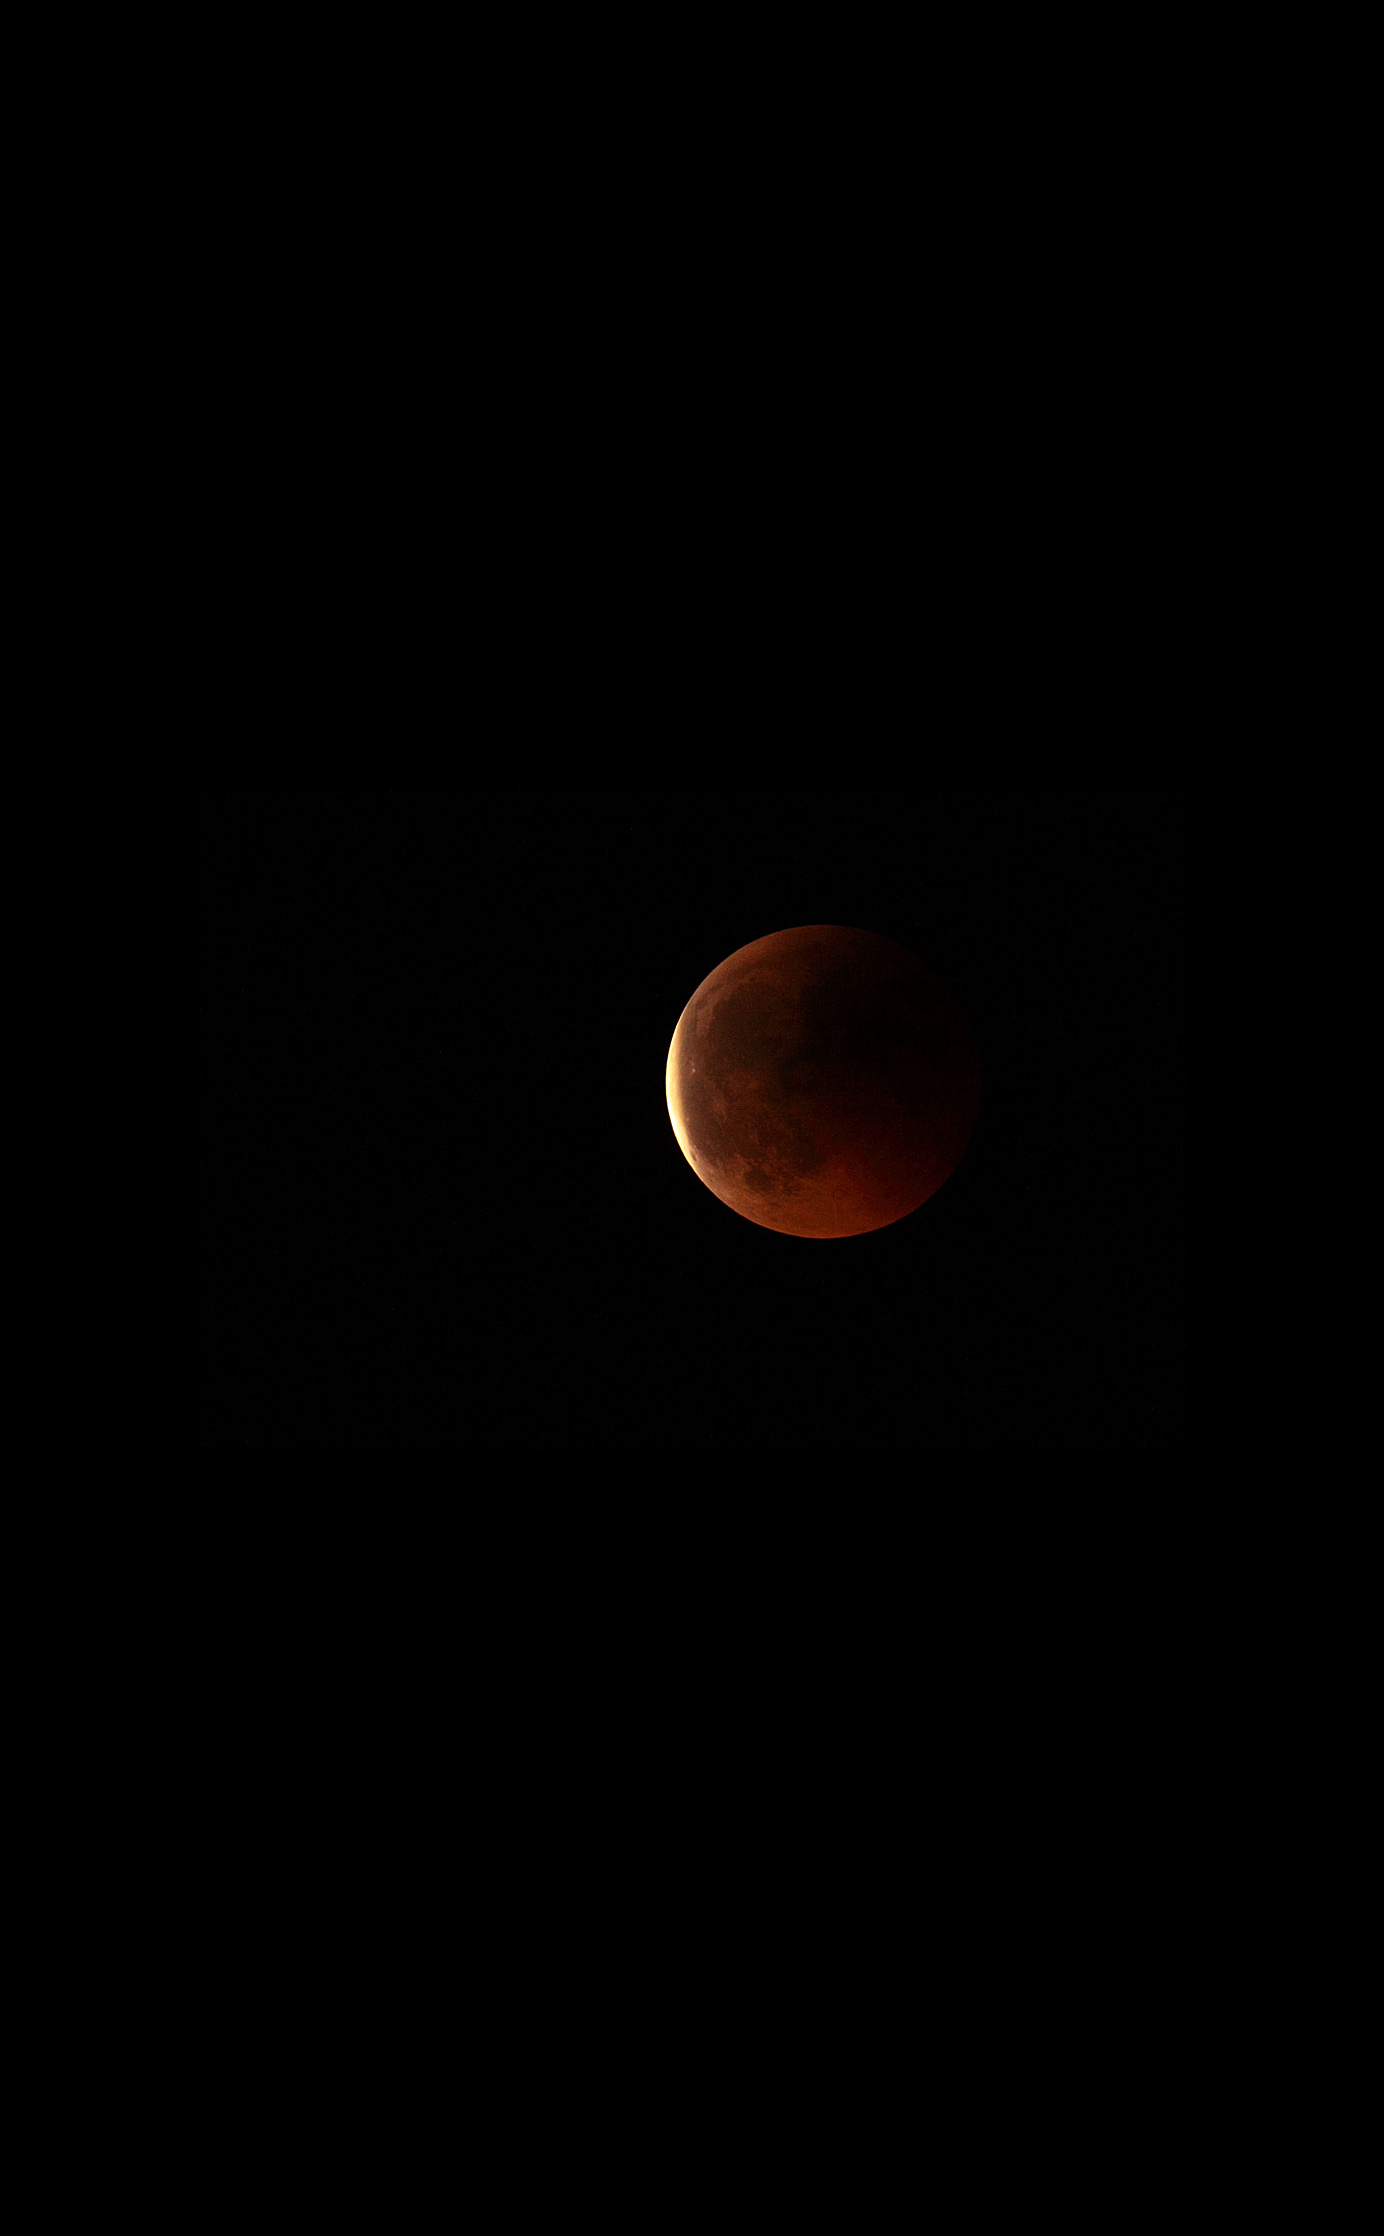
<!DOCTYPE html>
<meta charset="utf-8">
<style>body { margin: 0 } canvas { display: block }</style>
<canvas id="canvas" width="1384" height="2236"></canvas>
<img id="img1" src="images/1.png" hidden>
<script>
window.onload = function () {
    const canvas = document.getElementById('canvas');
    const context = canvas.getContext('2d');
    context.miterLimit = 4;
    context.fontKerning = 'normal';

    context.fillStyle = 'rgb(0, 0, 0)';
    context.fillRect(0, 0, 1384, 2236);
    context.drawImage(document.getElementById('img1'), 200, 788, 987, 662);
};
</script>
